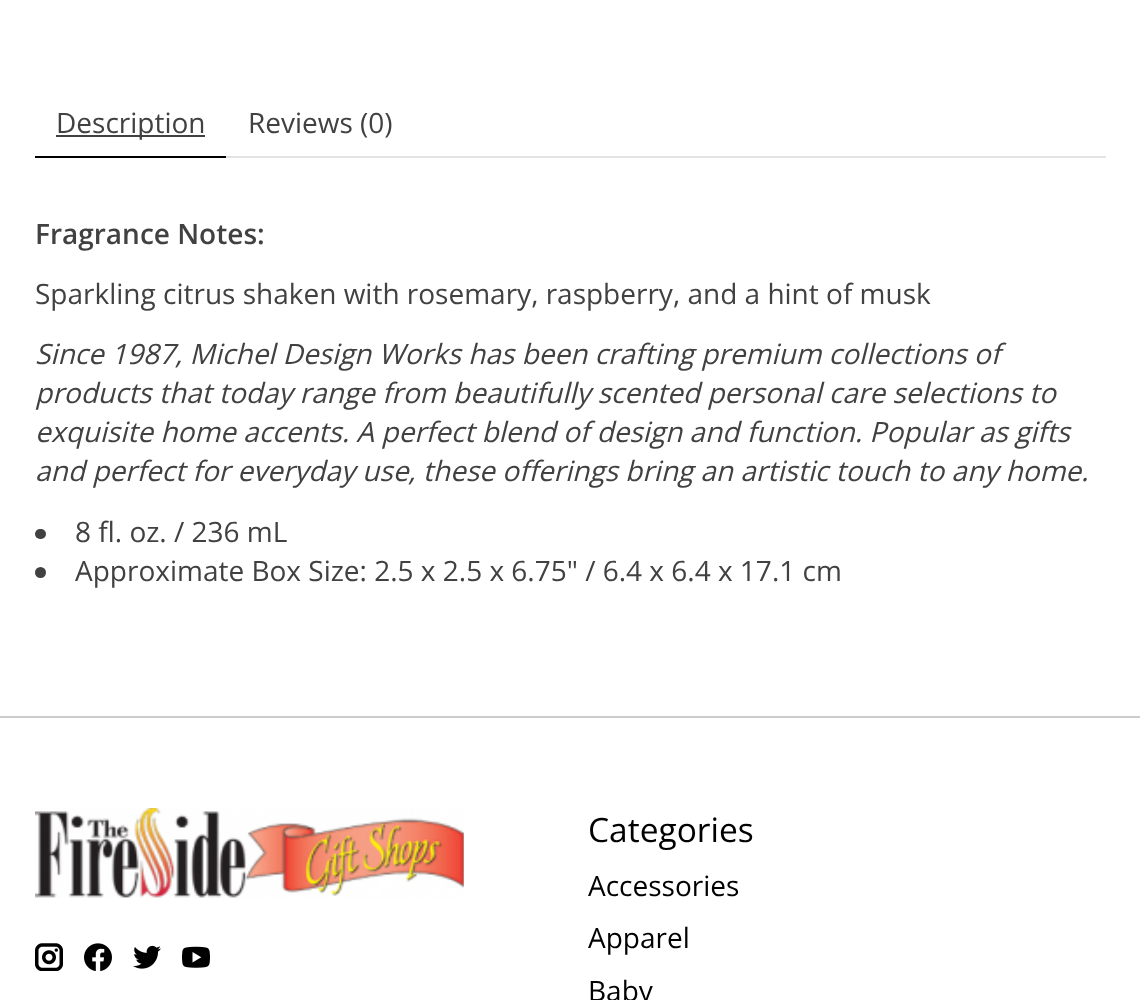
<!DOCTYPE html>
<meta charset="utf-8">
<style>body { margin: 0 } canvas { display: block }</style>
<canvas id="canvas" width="1140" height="1000"></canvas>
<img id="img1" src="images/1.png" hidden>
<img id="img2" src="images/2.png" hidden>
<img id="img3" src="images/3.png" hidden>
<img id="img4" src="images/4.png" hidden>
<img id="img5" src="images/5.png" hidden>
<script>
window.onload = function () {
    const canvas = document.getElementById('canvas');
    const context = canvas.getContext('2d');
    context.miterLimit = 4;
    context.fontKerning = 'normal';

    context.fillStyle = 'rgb(255, 255, 255)';
    context.fillRect(0, 0, 1140, 1000);
    context.fillStyle = 'rgb(0, 0, 0)';
    context.fillRect(35, 156, 191, 2);
    context.fillStyle = 'rgb(65, 65, 65)';
    context.fillRect(56, 135, 149, 2);
    context.fillStyle = 'rgb(227, 227, 227)';
    context.fillRect(226, 156, 880, 2);
    context.fillStyle = 'rgb(65, 65, 65)';
    context.beginPath();
    context.roundRect(35, 529, 11, 10, 5);
    context.fill();
    context.beginPath();
    context.arc(40.5, 572.5, 5.5, 0, 2 * Math.PI);
    context.fill();
    context.fillStyle = 'rgb(204, 204, 204)';
    context.fillRect(0, 716, 1140, 2);
    context.drawImage(document.getElementById('img1'), 35, 808, 429, 90);
    context.drawImage(document.getElementById('img2'), 35, 943, 28, 28);
    context.drawImage(document.getElementById('img3'), 84, 943, 28, 28);
    context.drawImage(document.getElementById('img4'), 133, 945, 28, 24);
    context.drawImage(document.getElementById('img5'), 182, 946, 28, 22);
    context.font = '28px Open Sans';
    context.fillStyle = 'rgb(65, 65, 65)';
    context.fillText('Description', 56, 133);
    context.fillText('Reviews (0)', 248, 133);
    context.font = '600 28px Open Sans';
    context.fillText('Fragrance Notes:', 35, 244);
    context.font = '28px Open Sans';
    context.fillText('Sparkling citrus shaken with rosemary, raspberry, and a hint of musk', 35, 304);
    context.font = 'italic 28px Open Sans';
    context.fillText('Since 1987, Michel Design Works has been crafting premium collections of', 35, 364);
    context.fillText('products that today range from beautifully scented personal care selections to', 35, 403);
    context.fillText('exquisite home accents. A perfect blend of design and function. Popular as gifts', 35, 442);
    context.fillText('and perfect for everyday use, these offerings bring an artistic touch to any home.', 35, 481);
    context.font = '28px Open Sans';
    context.fillText('8 fl. oz. / 236 mL', 75, 542);
    context.fillText('Approximate Box Size: 2.5 x 2.5 x 6.75" / 6.4 x 6.4 x 17.1 cm', 75, 581);
    context.font = '33.5px Open Sans';
    context.fillStyle = 'rgb(0, 0, 0)';
    context.fillText('Categories', 588, 842);
    context.font = '28px Open Sans';
    context.fillText('Accessories', 588, 896);
    context.fillText('Apparel', 588, 948);
    context.fillText('Baby', 588, 1001);
};
</script>
